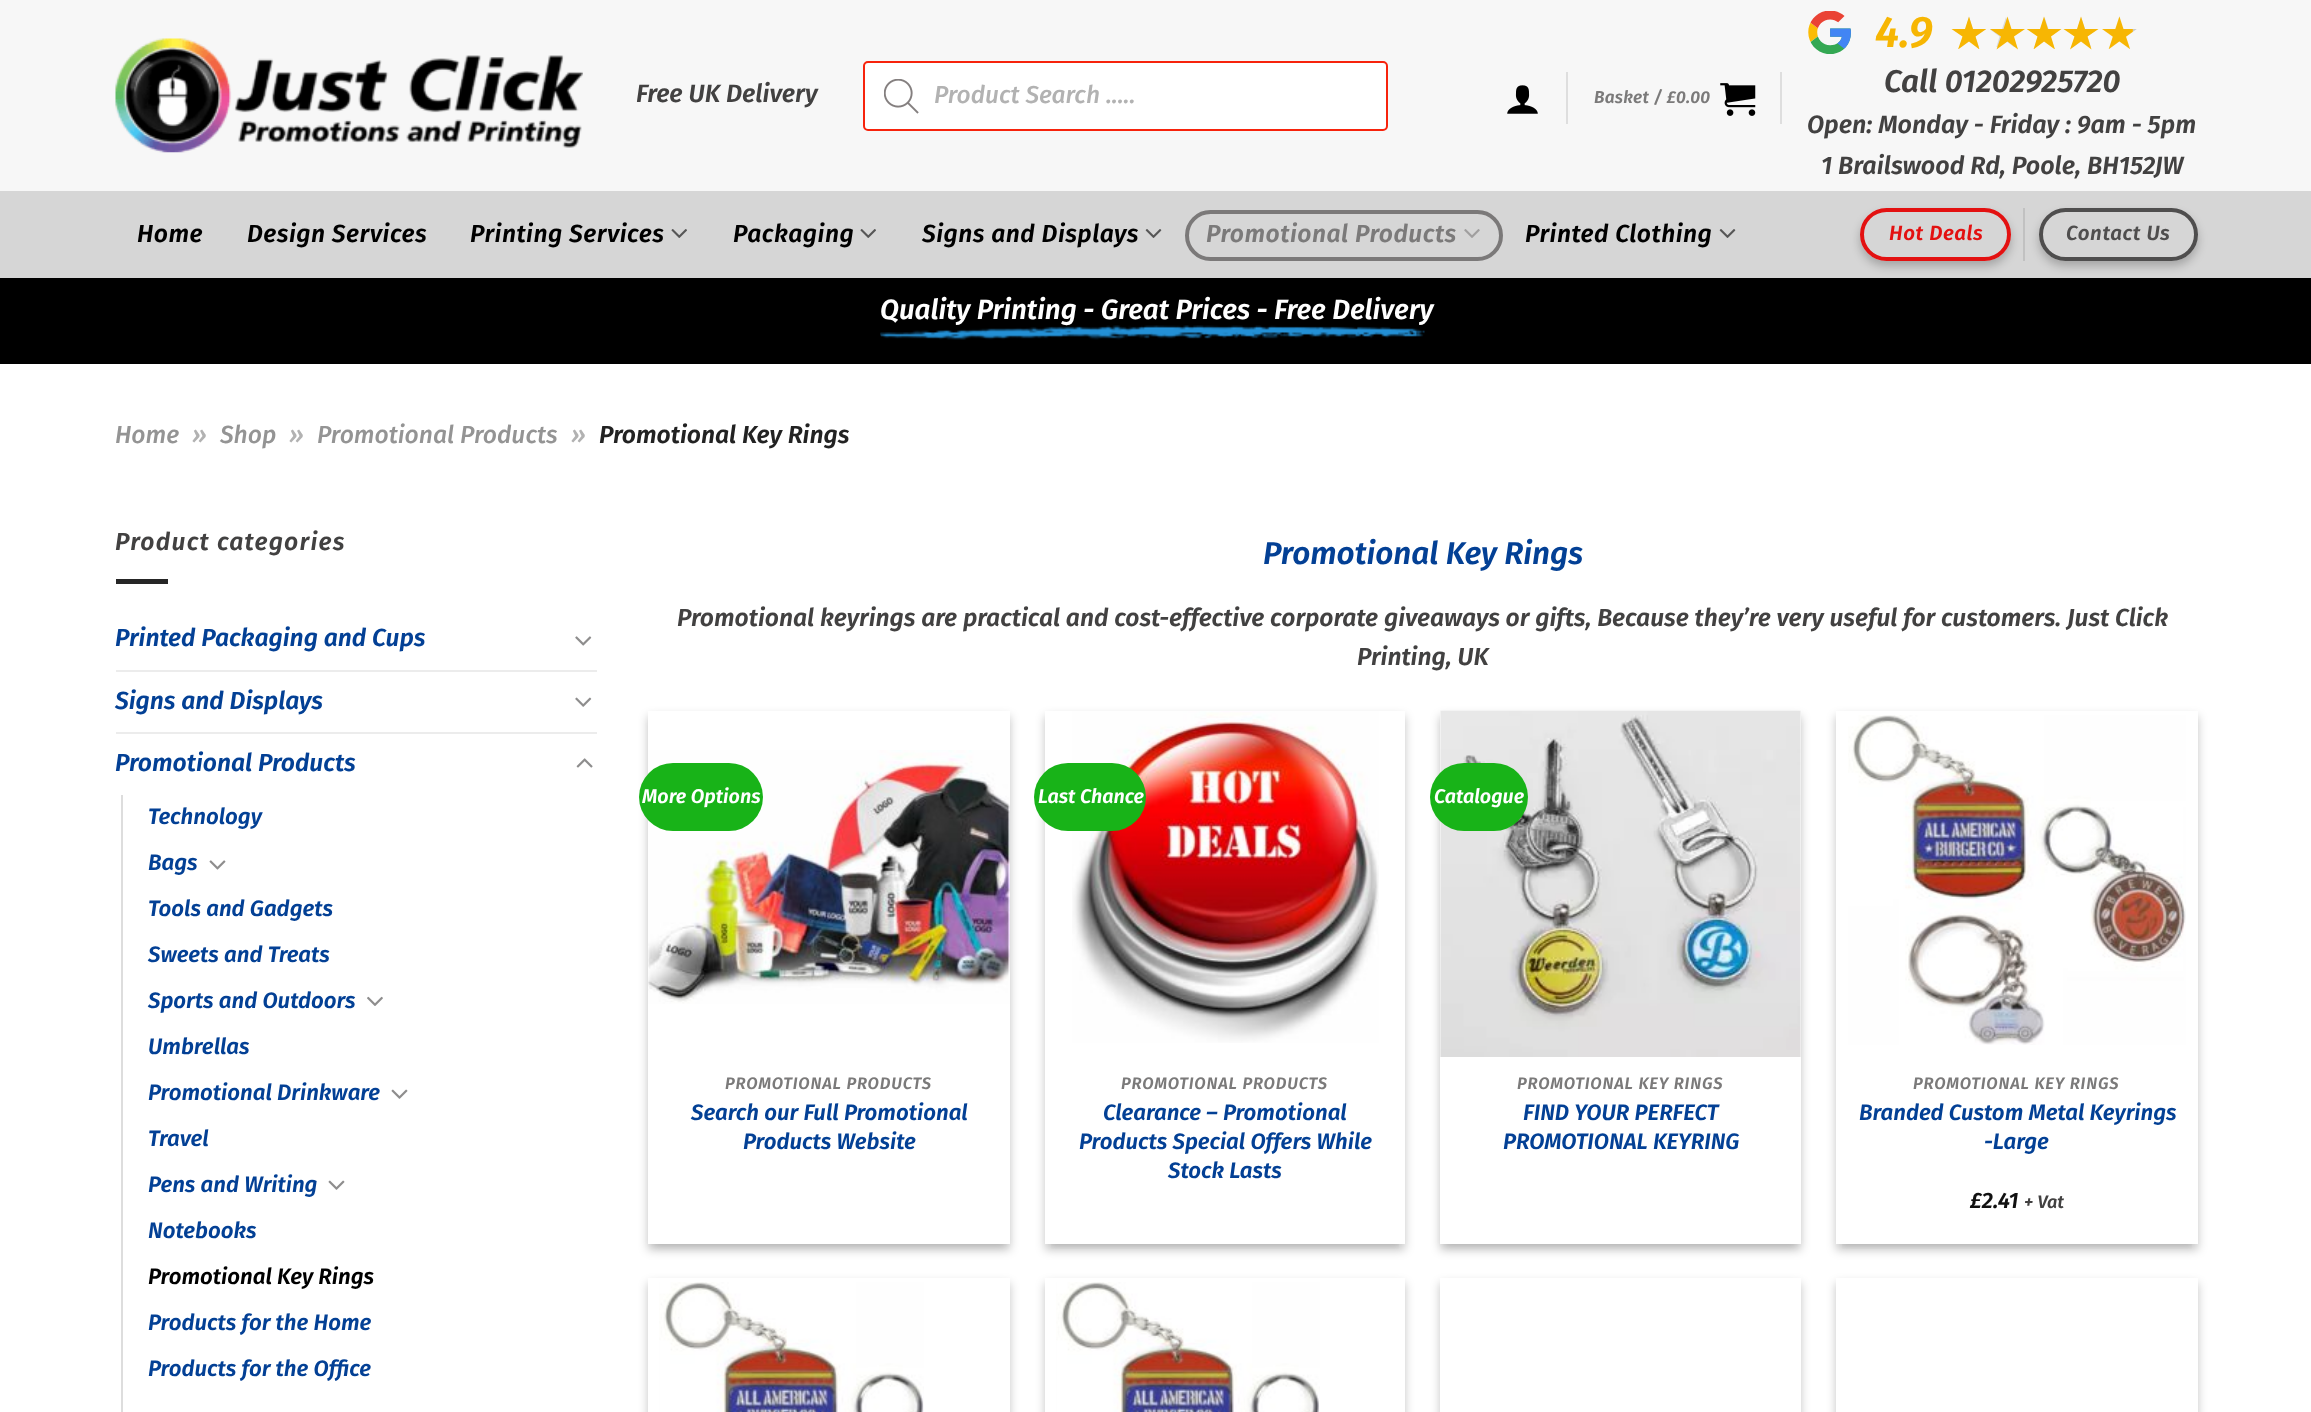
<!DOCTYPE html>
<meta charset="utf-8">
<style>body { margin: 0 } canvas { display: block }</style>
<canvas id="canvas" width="2311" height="1412"></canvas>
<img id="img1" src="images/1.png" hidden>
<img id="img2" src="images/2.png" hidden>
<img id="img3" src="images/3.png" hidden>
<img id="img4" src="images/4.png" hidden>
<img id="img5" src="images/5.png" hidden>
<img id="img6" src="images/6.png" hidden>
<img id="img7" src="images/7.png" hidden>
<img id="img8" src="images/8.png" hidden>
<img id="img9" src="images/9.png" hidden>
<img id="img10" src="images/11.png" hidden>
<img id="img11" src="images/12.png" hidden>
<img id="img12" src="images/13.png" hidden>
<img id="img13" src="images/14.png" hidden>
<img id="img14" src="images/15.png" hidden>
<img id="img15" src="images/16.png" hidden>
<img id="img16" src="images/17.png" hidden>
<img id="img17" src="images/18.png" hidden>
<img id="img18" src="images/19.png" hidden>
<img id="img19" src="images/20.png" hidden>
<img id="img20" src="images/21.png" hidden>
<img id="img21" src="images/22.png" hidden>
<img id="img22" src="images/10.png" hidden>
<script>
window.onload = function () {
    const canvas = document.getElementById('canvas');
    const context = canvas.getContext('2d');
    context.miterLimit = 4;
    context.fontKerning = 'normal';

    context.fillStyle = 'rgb(255, 255, 255)';
    context.fillRect(0, 0, 2311, 1412);
    context.fillStyle = 'rgb(247, 247, 247)';
    context.fillRect(0, 0, 2311, 191);
    context.drawImage(document.getElementById('img1'), 115, 38, 468, 115);
    context.fillStyle = 'rgb(255, 255, 255)';
    context.beginPath();
    context.roundRect(864, 62, 523, 68, 4);
    context.fill();
    context.strokeStyle = 'rgb(247, 35, 12)';
    context.lineWidth = 2;
    context.stroke();
    context.drawImage(document.getElementById('img2'), 884, 79, 35, 35);
    context.drawImage(document.getElementById('img3'), 1507, 85, 31, 29);
    context.fillStyle = 'rgb(222, 222, 222)';
    context.fillRect(1566, 72, 2, 52);
    context.drawImage(document.getElementById('img4'), 1720, 83, 36, 33);
    context.fillRect(1780, 72, 2, 52);
    context.drawImage(document.getElementById('img5'), 1808, 11, 43, 43);
    context.save();
    context.beginPath();
    context.rect(1953, 16, 33, 31);
    context.clip();
    context.fillStyle = 'rgb(218, 218, 218)';
    context.beginPath();
    context.moveTo(1975.5, 36.5);
    context.lineTo(1985.5, 29);
    context.lineTo(1973, 29);
    context.lineTo(1969, 17);
    context.lineTo(1965.5, 29);
    context.lineTo(1952.5, 29);
    context.lineTo(1963, 36.5);
    context.lineTo(1959, 48.5);
    context.lineTo(1969, 41);
    context.lineTo(1979.5, 48.5);
    context.closePath();
    context.fill();
    context.restore();
    context.save();
    context.beginPath();
    context.rect(1951, 16, 35, 33);
    context.clip();
    context.fillStyle = 'rgb(247, 182, 3)';
    context.beginPath();
    context.moveTo(1975.5, 36.5);
    context.lineTo(1986.5, 29);
    context.lineTo(1973, 29);
    context.lineTo(1969, 16.5);
    context.lineTo(1965, 29);
    context.lineTo(1951.5, 29);
    context.lineTo(1962.5, 36.5);
    context.lineTo(1958, 49.5);
    context.lineTo(1969, 41.5);
    context.lineTo(1979.5, 49.5);
    context.closePath();
    context.fill();
    context.restore();
    context.save();
    context.beginPath();
    context.rect(1990, 16, 33, 31);
    context.clip();
    context.fillStyle = 'rgb(218, 218, 218)';
    context.beginPath();
    context.moveTo(2012, 36.5);
    context.lineTo(2022.5, 29);
    context.lineTo(2010, 29);
    context.lineTo(2006, 17);
    context.lineTo(2002, 29);
    context.lineTo(1989.5, 29);
    context.lineTo(1999.5, 36.5);
    context.lineTo(1996, 48.5);
    context.lineTo(2006, 41);
    context.lineTo(2016, 48.5);
    context.closePath();
    context.fill();
    context.restore();
    context.fillStyle = 'rgb(247, 182, 3)';
    context.beginPath();
    context.moveTo(2014, 36.5);
    context.lineTo(2025, 29);
    context.lineTo(2011.5, 29);
    context.lineTo(2007.5, 16.5);
    context.lineTo(2003.5, 29);
    context.lineTo(1990, 29);
    context.lineTo(2001, 36.5);
    context.lineTo(1996.5, 49.5);
    context.lineTo(2007.5, 41.5);
    context.lineTo(2018, 49.5);
    context.closePath();
    context.fill();
    context.save();
    context.beginPath();
    context.rect(2028, 16, 34, 31);
    context.clip();
    context.fillStyle = 'rgb(218, 218, 218)';
    context.beginPath();
    context.moveTo(2050.5, 36.5);
    context.lineTo(2061, 29);
    context.lineTo(2048.5, 29);
    context.lineTo(2044.5, 17);
    context.lineTo(2040.5, 29);
    context.lineTo(2028, 29);
    context.lineTo(2038, 36.5);
    context.lineTo(2034, 48.5);
    context.lineTo(2044.5, 41);
    context.lineTo(2054.5, 48.5);
    context.closePath();
    context.fill();
    context.restore();
    context.save();
    context.beginPath();
    context.rect(2027, 16, 35, 33);
    context.clip();
    context.beginPath();
    context.moveTo(2051, 36.5);
    context.lineTo(2061.5, 29);
    context.lineTo(2048, 29);
    context.lineTo(2044, 16.5);
    context.lineTo(2040, 29);
    context.lineTo(2026.5, 29);
    context.lineTo(2037.5, 36.5);
    context.lineTo(2033.5, 49.5);
    context.lineTo(2044, 41.5);
    context.lineTo(2055, 49.5);
    context.closePath();
    context.fill();
    context.restore();
    context.save();
    context.beginPath();
    context.rect(2065, 16, 33, 31);
    context.clip();
    context.fillStyle = 'rgb(218, 218, 218)';
    context.beginPath();
    context.moveTo(2087.5, 36.5);
    context.lineTo(2097.5, 29);
    context.lineTo(2085, 29);
    context.lineTo(2081, 17);
    context.lineTo(2077.5, 29);
    context.lineTo(2064.5, 29);
    context.lineTo(2075, 36.5);
    context.lineTo(2071, 48.5);
    context.lineTo(2081, 41);
    context.lineTo(2091.5, 48.5);
    context.closePath();
    context.fill();
    context.restore();
    context.beginPath();
    context.moveTo(2087.5, 36.5);
    context.lineTo(2098.5, 29);
    context.lineTo(2085, 29);
    context.lineTo(2081, 16.5);
    context.lineTo(2077, 29);
    context.lineTo(2063.5, 29);
    context.lineTo(2074.5, 36.5);
    context.lineTo(2070, 49.5);
    context.lineTo(2081, 41.5);
    context.lineTo(2091.5, 49.5);
    context.closePath();
    context.fill();
    context.drawImage(document.getElementById('img6'), 2102, 16, 35, 33);
    context.fillStyle = 'rgb(214, 214, 214)';
    context.fillRect(0, 191, 2311, 87);
    context.drawImage(document.getElementById('img7'), 671, 229, 16, 9);
    context.drawImage(document.getElementById('img7'), 860, 229, 16, 9);
    context.drawImage(document.getElementById('img8'), 1145, 229, 17, 9);
    context.beginPath();
    context.roundRect(1187, 212, 314, 47, 23.5);
    context.strokeStyle = 'rgb(123, 121, 121)';
    context.lineWidth = 4;
    context.stroke();
    context.drawImage(document.getElementById('img9'), 1464, 229, 16, 9);
    context.drawImage(document.getElementById('img8'), 1719, 229, 17, 9);
    context.fillStyle = 'rgb(0, 0, 0)';
    context.fillRect(0, 278, 2311, 86);
    context.save();
    context.beginPath();
    context.moveTo(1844, 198);
    context.lineTo(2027, 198);
    context.lineTo(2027, 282);
    context.lineTo(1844, 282);
    context.closePath();
    context.moveTo(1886.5, 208);
    context.lineTo(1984.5, 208);
    context.bezierCurveTo(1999, 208, 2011, 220, 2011, 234.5);
    context.bezierCurveTo(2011, 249, 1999, 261, 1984.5, 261);
    context.lineTo(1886.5, 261);
    context.bezierCurveTo(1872, 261, 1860, 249, 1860, 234.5);
    context.bezierCurveTo(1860, 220, 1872, 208, 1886.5, 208);
    context.closePath();
    context.clip('evenodd');
    context.fillStyle = 'rgba(0, 0, 0, 0.23)';
    context.filter = 'blur(5px)';
    context.beginPath();
    context.roundRect(1860, 214, 151, 52, 26);
    context.fill();
    context.filter = 'none';
    context.restore();
    context.beginPath();
    context.roundRect(1862, 210, 147, 49, 24.5);
    context.strokeStyle = 'rgb(227, 17, 17)';
    context.stroke();
    context.fillStyle = 'rgb(193, 193, 193)';
    context.fillRect(2023, 208, 2, 53);
    context.save();
    context.beginPath();
    context.moveTo(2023, 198);
    context.lineTo(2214, 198);
    context.lineTo(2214, 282);
    context.lineTo(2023, 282);
    context.closePath();
    context.moveTo(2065.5, 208);
    context.lineTo(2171.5, 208);
    context.bezierCurveTo(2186, 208, 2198, 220, 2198, 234.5);
    context.bezierCurveTo(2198, 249, 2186, 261, 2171.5, 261);
    context.lineTo(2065.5, 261);
    context.bezierCurveTo(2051, 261, 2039, 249, 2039, 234.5);
    context.bezierCurveTo(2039, 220, 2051, 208, 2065.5, 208);
    context.closePath();
    context.clip('evenodd');
    context.fillStyle = 'rgba(0, 0, 0, 0.23)';
    context.filter = 'blur(5px)';
    context.beginPath();
    context.roundRect(2039, 214, 159, 52, 26);
    context.fill();
    context.filter = 'none';
    context.restore();
    context.beginPath();
    context.roundRect(2041, 210, 155, 49, 24.5);
    context.strokeStyle = 'rgb(79, 78, 78)';
    context.stroke();
    context.fillStyle = 'rgb(38, 38, 38)';
    context.fillRect(116, 579, 52, 5);
    context.drawImage(document.getElementById('img10'), 575, 636, 17, 10);
    context.fillStyle = 'rgb(236, 236, 236)';
    context.fillRect(116, 670, 481, 2);
    context.drawImage(document.getElementById('img11'), 575, 697, 17, 10);
    context.fillRect(116, 732, 481, 2);
    context.drawImage(document.getElementById('img12'), 576, 758, 17, 10);
    context.fillStyle = 'rgb(221, 221, 221)';
    context.fillRect(121, 795, 2, 617);
    context.drawImage(document.getElementById('img13'), 209, 860, 17, 10);
    context.drawImage(document.getElementById('img14'), 367, 996, 16, 10);
    context.drawImage(document.getElementById('img15'), 391, 1089, 17, 10);
    context.drawImage(document.getElementById('img15'), 328, 1180, 17, 10);
    context.fillStyle = 'rgba(0, 0, 0, 0.23)';
    context.filter = 'blur(5px)';
    context.beginPath();
    context.rect(648, 716, 362, 534);
    context.fill();
    context.filter = 'none';
    context.fillStyle = 'rgba(0, 0, 0, 0.16)';
    context.filter = 'blur(5px)';
    context.beginPath();
    context.rect(655, 723, 348, 520);
    context.fill();
    context.filter = 'none';
    context.fillStyle = 'rgb(255, 255, 255)';
    context.fillRect(648, 711, 362, 533);
    context.drawImage(document.getElementById('img16'), 648, 750, 362, 254);
    context.fillStyle = 'rgb(24, 179, 24)';
    context.beginPath();
    context.roundRect(639, 763, 124, 68, 34);
    context.fill();
    context.save();
    context.beginPath();
    context.moveTo(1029, 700);
    context.lineTo(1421, 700);
    context.lineTo(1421, 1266);
    context.lineTo(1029, 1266);
    context.closePath();
    context.moveTo(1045, 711);
    context.lineTo(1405, 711);
    context.lineTo(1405, 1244);
    context.lineTo(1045, 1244);
    context.closePath();
    context.clip('evenodd');
    context.fillStyle = 'rgba(0, 0, 0, 0.23)';
    context.filter = 'blur(5px)';
    context.beginPath();
    context.rect(1045, 716, 360, 534);
    context.fill();
    context.filter = 'none';
    context.restore();
    context.save();
    context.beginPath();
    context.rect(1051, 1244, 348, 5);
    context.clip();
    context.fillStyle = 'rgba(0, 0, 0, 0.16)';
    context.filter = 'blur(5px)';
    context.beginPath();
    context.rect(1052, 723, 346, 520);
    context.fill();
    context.filter = 'none';
    context.restore();
    context.drawImage(document.getElementById('img17'), 1072, 711, 307, 332);
    context.beginPath();
    context.roundRect(1034, 763, 112, 68, 34);
    context.fill();
    context.fillStyle = 'rgba(0, 0, 0, 0.23)';
    context.filter = 'blur(5px)';
    context.beginPath();
    context.rect(1440, 716, 361, 534);
    context.fill();
    context.filter = 'none';
    context.fillStyle = 'rgba(0, 0, 0, 0.16)';
    context.filter = 'blur(5px)';
    context.beginPath();
    context.rect(1447, 723, 347, 520);
    context.fill();
    context.filter = 'none';
    context.fillStyle = 'rgb(255, 255, 255)';
    context.fillRect(1440, 711, 361, 533);
    context.drawImage(document.getElementById('img18'), 1440, 710, 361, 347);
    context.fillStyle = 'rgb(24, 179, 24)';
    context.beginPath();
    context.roundRect(1430, 763, 98, 68, 34);
    context.fill();
    context.save();
    context.beginPath();
    context.moveTo(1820, 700);
    context.lineTo(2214, 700);
    context.lineTo(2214, 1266);
    context.lineTo(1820, 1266);
    context.closePath();
    context.moveTo(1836, 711);
    context.lineTo(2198, 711);
    context.lineTo(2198, 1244);
    context.lineTo(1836, 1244);
    context.closePath();
    context.clip('evenodd');
    context.fillStyle = 'rgba(0, 0, 0, 0.23)';
    context.filter = 'blur(5px)';
    context.beginPath();
    context.rect(1836, 716, 362, 534);
    context.fill();
    context.filter = 'none';
    context.restore();
    context.save();
    context.beginPath();
    context.rect(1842, 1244, 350, 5);
    context.clip();
    context.fillStyle = 'rgba(0, 0, 0, 0.16)';
    context.filter = 'blur(5px)';
    context.beginPath();
    context.rect(1843, 723, 348, 520);
    context.fill();
    context.filter = 'none';
    context.restore();
    context.drawImage(document.getElementById('img19'), 1848, 715, 338, 330);
    context.fillStyle = 'rgba(0, 0, 0, 0.23)';
    context.filter = 'blur(5px)';
    context.beginPath();
    context.rect(648, 1283, 362, 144);
    context.fill();
    context.filter = 'none';
    context.fillStyle = 'rgb(255, 255, 255)';
    context.fillRect(648, 1278, 362, 134);
    context.drawImage(document.getElementById('img20'), 659, 1282, 265, 130);
    context.save();
    context.beginPath();
    context.moveTo(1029, 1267);
    context.lineTo(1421, 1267);
    context.lineTo(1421, 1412);
    context.lineTo(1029, 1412);
    context.closePath();
    context.moveTo(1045, 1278);
    context.lineTo(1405, 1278);
    context.lineTo(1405, 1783);
    context.lineTo(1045, 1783);
    context.closePath();
    context.clip('evenodd');
    context.fillStyle = 'rgba(0, 0, 0, 0.23)';
    context.filter = 'blur(5px)';
    context.beginPath();
    context.rect(1045, 1283, 360, 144);
    context.fill();
    context.filter = 'none';
    context.restore();
    context.drawImage(document.getElementById('img21'), 1056, 1282, 264, 130);
    context.fillStyle = 'rgba(0, 0, 0, 0.23)';
    context.filter = 'blur(5px)';
    context.beginPath();
    context.rect(1440, 1283, 361, 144);
    context.fill();
    context.filter = 'none';
    context.fillStyle = 'rgb(255, 255, 255)';
    context.fillRect(1440, 1278, 361, 134);
    context.save();
    context.beginPath();
    context.moveTo(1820, 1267);
    context.lineTo(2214, 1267);
    context.lineTo(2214, 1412);
    context.lineTo(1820, 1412);
    context.closePath();
    context.moveTo(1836, 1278);
    context.lineTo(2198, 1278);
    context.lineTo(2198, 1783);
    context.lineTo(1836, 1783);
    context.closePath();
    context.clip('evenodd');
    context.fillStyle = 'rgba(0, 0, 0, 0.23)';
    context.filter = 'blur(5px)';
    context.beginPath();
    context.rect(1836, 1283, 362, 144);
    context.fill();
    context.filter = 'none';
    context.restore();
    context.font = 'italic 600 25.1px Fira Sans';
    context.fillStyle = 'rgb(66, 65, 65)';
    context.fillText('Free UK Delivery', 636, 102);
    context.font = 'italic 500 24.5px Fira Sans';
    context.fillStyle = 'rgb(178, 178, 178)';
    context.fillText('Product Search .....', 934, 103);
    context.letterSpacing = '0.25px';
    context.font = 'italic 600 17.25px Fira Sans';
    context.fillStyle = 'rgb(123, 122, 122)';
    context.fillText('Basket / £', 1594, 103);
    context.fillText('0.00', 1676, 103);
    context.letterSpacing = '0px';
    context.font = 'italic 600 44px Fira Sans';
    context.fillStyle = 'rgb(247, 182, 3)';
    context.fillText('4.9', 1875, 47);
    context.font = 'italic 600 31.5px Fira Sans';
    context.fillStyle = 'rgb(66, 65, 65)';
    context.fillText('Call 01202925720', 1884, 92);
    context.font = 'italic 600 25.1px Fira Sans';
    context.fillText('Open: Monday - Friday : 9am - 5pm', 1807, 133);
    context.fillText('1 Brailswood Rd, Poole, BH152JW', 1821, 174);
    context.letterSpacing = '0.5px';
    context.font = 'italic 600 24.65px Fira Sans';
    context.fillStyle = 'rgb(0, 0, 0)';
    context.fillText('Home', 137, 242);
    context.fillText('Design Services', 247, 242);
    context.fillText('Printing Services', 470, 242);
    context.fillText('Packaging', 733, 242);
    context.fillText('Signs and Displays', 922, 242);
    context.fillStyle = 'rgb(123, 122, 122)';
    context.fillText('Promotional Products', 1206, 242);
    context.fillStyle = 'rgb(0, 0, 0)';
    context.fillText('Printed Clothing', 1525, 242);
    context.letterSpacing = '0.6px';
    context.font = 'italic 600 20.5px Fira Sans';
    context.fillStyle = 'rgb(227, 17, 17)';
    context.fillText('Hot Deals', 1889, 240);
    context.fillStyle = 'rgb(79, 78, 78)';
    context.fillText('Contact Us', 2066, 240);
    context.letterSpacing = '0px';
    context.font = 'italic 600 27.75px Fira Sans';
    context.fillStyle = 'rgb(255, 255, 255)';
    context.fillText('Quality Printing - Great Prices - Free Delivery', 880, 319);
    context.drawImage(document.getElementById('img22'), 880, 325, 545, 15);
    context.font = 'italic 500 24.65px Fira Sans';
    context.fillStyle = 'rgb(148, 148, 148)';
    context.fillText('Home', 115, 443);
    context.fillStyle = 'rgb(178, 178, 178)';
    context.fillText('»', 192, 443);
    context.fillStyle = 'rgb(148, 148, 148)';
    context.fillText('Shop', 220, 443);
    context.fillStyle = 'rgb(178, 178, 178)';
    context.fillText('»', 289, 443);
    context.fillStyle = 'rgb(148, 148, 148)';
    context.fillText('Promotional Products', 317, 443);
    context.fillStyle = 'rgb(178, 178, 178)';
    context.fillText('»', 571, 443);
    context.font = 'italic 600 24.65px Fira Sans';
    context.fillStyle = 'rgb(34, 34, 34)';
    context.fillText('Promotional Key Rings', 599, 443);
    context.letterSpacing = '1.25px';
    context.fillStyle = 'rgb(66, 65, 65)';
    context.fillText('Product categories', 115, 550);
    context.letterSpacing = '0px';
    context.fillStyle = 'rgb(3, 64, 149)';
    context.fillText('Printed Packaging and Cups', 115, 646);
    context.fillText('Signs and Displays', 115, 709);
    context.fillText('Promotional Products', 115, 771);
    context.font = 'italic 600 22.25px Fira Sans';
    context.fillText('Technology', 148, 824);
    context.fillText('Bags', 148, 870);
    context.fillText('Tools and Gadgets', 148, 916);
    context.fillText('Sweets and Treats', 148, 962);
    context.fillText('Sports and Outdoors', 148, 1008);
    context.fillText('Umbrellas', 148, 1054);
    context.fillText('Promotional Drinkware', 148, 1100);
    context.fillText('Travel', 148, 1146);
    context.fillText('Pens and Writing', 148, 1192);
    context.fillText('Notebooks', 148, 1238);
    context.fillStyle = 'rgb(0, 0, 0)';
    context.fillText('Promotional Key Rings', 148, 1284);
    context.fillStyle = 'rgb(3, 64, 149)';
    context.fillText('Products for the Home', 148, 1330);
    context.fillText('Products for the Office', 148, 1376);
    context.font = 'italic 600 31.5px Fira Sans';
    context.fillText('Promotional Key Rings', 1263, 564);
    context.font = 'italic 600 24.65px Fira Sans';
    context.fillStyle = 'rgb(66, 65, 65)';
    context.fillText('Promotional keyrings are practical and cost-effective corporate giveaways or gifts, Because they’re very useful for customers. Just Click', 677, 626);
    context.fillText('Printing, UK', 1357, 665);
    context.font = 'italic 600 19.75px Fira Sans';
    context.fillStyle = 'rgb(255, 255, 255)';
    context.fillText('More Options', 642, 803);
    context.letterSpacing = '0.8px';
    context.font = 'italic 600 16.6px Fira Sans';
    context.fillStyle = 'rgb(123, 122, 122)';
    context.fillText('PROMOTIONAL PRODUCTS', 725, 1089);
    context.letterSpacing = '0px';
    context.font = 'italic 600 22.25px Fira Sans';
    context.fillStyle = 'rgb(3, 64, 149)';
    context.fillText('Search our Full Promotional', 691, 1120);
    context.fillText('Products Website', 743, 1149);
    context.font = 'italic 600 19.75px Fira Sans';
    context.fillStyle = 'rgb(255, 255, 255)';
    context.fillText('Last Chance', 1038, 803);
    context.letterSpacing = '0.8px';
    context.font = 'italic 600 16.6px Fira Sans';
    context.fillStyle = 'rgb(123, 122, 122)';
    context.fillText('PROMOTIONAL PRODUCTS', 1121, 1089);
    context.letterSpacing = '0px';
    context.font = 'italic 600 22.25px Fira Sans';
    context.fillStyle = 'rgb(3, 64, 149)';
    context.fillText('Clearance – Promotional', 1103, 1120);
    context.fillText('Products Special Offers While', 1079, 1149);
    context.fillText('Stock Lasts', 1168, 1178);
    context.font = 'italic 600 19.75px Fira Sans';
    context.fillStyle = 'rgb(255, 255, 255)';
    context.fillText('Catalogue', 1434, 803);
    context.letterSpacing = '0.8px';
    context.font = 'italic 600 16.6px Fira Sans';
    context.fillStyle = 'rgb(123, 122, 122)';
    context.fillText('PROMOTIONAL KEY RINGS', 1517, 1089);
    context.letterSpacing = '0px';
    context.font = 'italic 600 22.25px Fira Sans';
    context.fillStyle = 'rgb(3, 64, 149)';
    context.fillText('FIND YOUR PERFECT', 1523, 1120);
    context.fillText('PROMOTIONAL KEYRING', 1503, 1149);
    context.letterSpacing = '0.8px';
    context.font = 'italic 600 16.6px Fira Sans';
    context.fillStyle = 'rgb(123, 122, 122)';
    context.fillText('PROMOTIONAL KEY RINGS', 1913, 1089);
    context.letterSpacing = '0px';
    context.font = 'italic 600 22.25px Fira Sans';
    context.fillStyle = 'rgb(3, 64, 149)';
    context.fillText('Branded Custom Metal Keyrings', 1859, 1120);
    context.fillText('-Large', 1984, 1149);
    context.fillStyle = 'rgb(17, 17, 17)';
    context.fillText('£2.41', 1970, 1208);
    context.font = 'italic 600 18px Fira Sans';
    context.fillStyle = 'rgb(66, 65, 65)';
    context.fillText('+ Vat', 2024, 1208);
};
</script>
